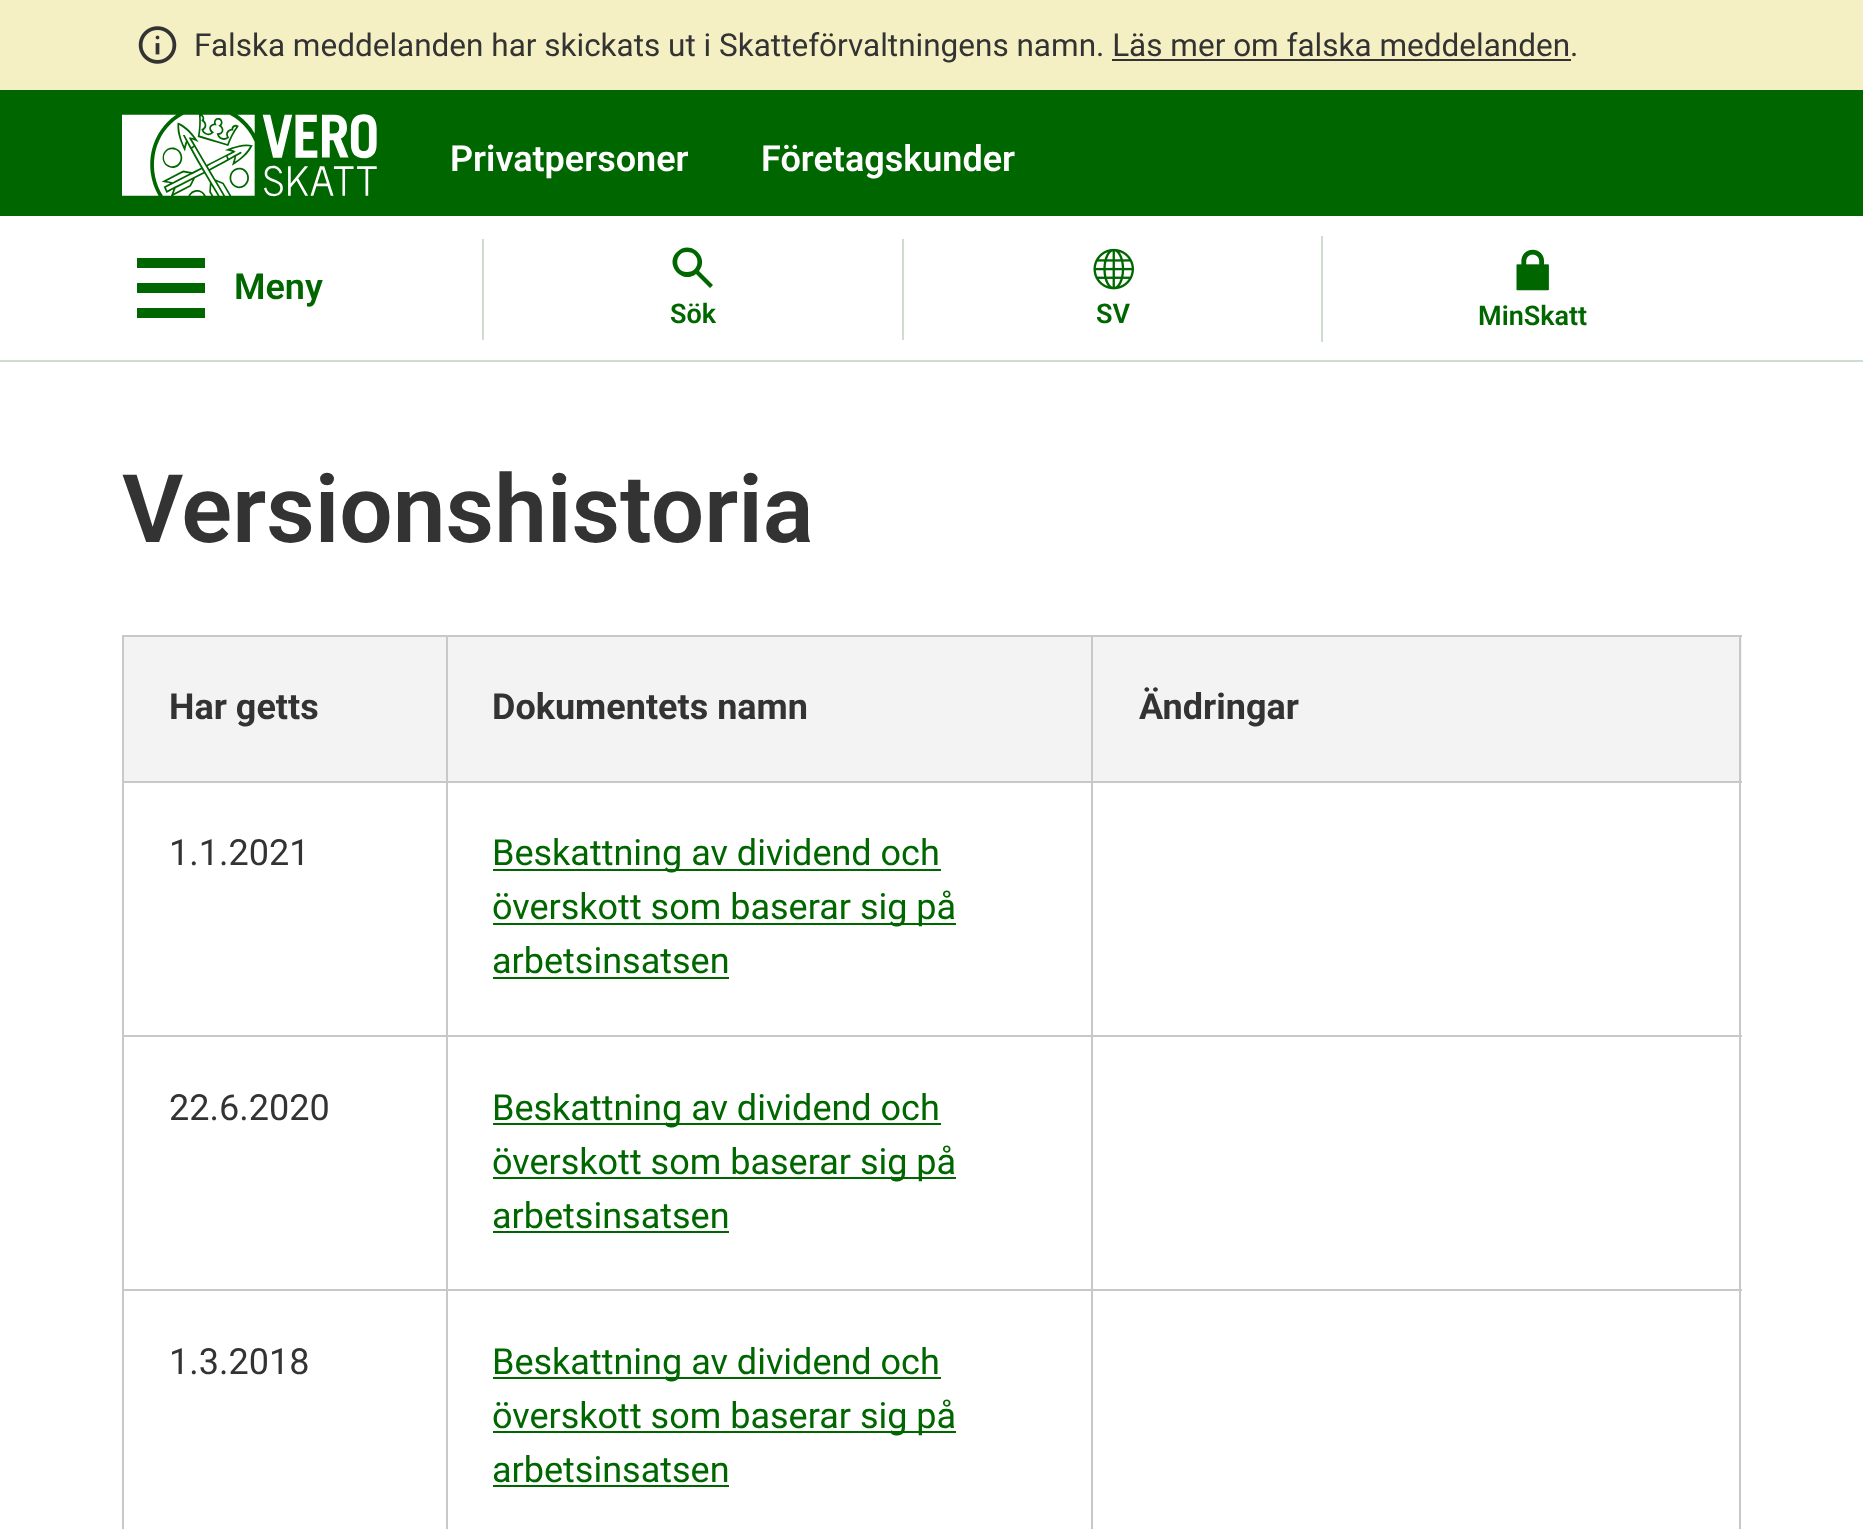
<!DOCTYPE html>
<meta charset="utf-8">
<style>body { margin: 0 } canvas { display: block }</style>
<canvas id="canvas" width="1863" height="1529"></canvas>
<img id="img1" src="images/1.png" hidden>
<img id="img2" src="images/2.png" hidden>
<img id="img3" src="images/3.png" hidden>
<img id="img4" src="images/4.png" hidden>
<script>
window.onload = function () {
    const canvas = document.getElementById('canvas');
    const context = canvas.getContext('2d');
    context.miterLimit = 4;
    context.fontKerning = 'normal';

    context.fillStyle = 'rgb(255, 255, 255)';
    context.fillRect(0, 0, 1863, 1529);
    context.fillStyle = 'rgb(245, 240, 195)';
    context.fillRect(0, 0, 1863, 90);
    context.drawImage(document.getElementById('img1'), 138, 26, 39, 38);
    context.fillStyle = 'rgb(51, 51, 51)';
    context.fillRect(1112, 59, 459, 2);
    context.fillStyle = 'rgb(0, 102, 0)';
    context.fillRect(0, 90, 1863, 126);
    context.drawImage(document.getElementById('img2'), 122, 114, 255, 83);
    context.fillStyle = 'rgb(204, 223, 204)';
    context.fillRect(0, 360, 1863, 2);
    context.fillStyle = 'rgb(0, 102, 0)';
    context.beginPath();
    context.moveTo(137, 318);
    context.lineTo(137, 308);
    context.lineTo(205, 308);
    context.lineTo(205, 318);
    context.closePath();
    context.moveTo(137, 293);
    context.lineTo(137, 283);
    context.lineTo(205, 283);
    context.lineTo(205, 293);
    context.closePath();
    context.moveTo(137, 268);
    context.lineTo(137, 258);
    context.lineTo(205, 258);
    context.lineTo(205, 268);
    context.closePath();
    context.fill();
    context.fillStyle = 'rgb(204, 223, 204)';
    context.fillRect(482, 239, 2, 101);
    context.fillStyle = 'rgb(0, 102, 0)';
    context.beginPath();
    context.moveTo(710, 288);
    context.lineTo(696, 274);
    context.bezierCurveTo(682, 285, 664, 264, 677, 252);
    context.bezierCurveTo(690, 239, 710, 257, 699, 271);
    context.lineTo(713, 285);
    context.closePath();
    context.moveTo(687, 272);
    context.bezierCurveTo(701, 272, 701, 252, 687, 252);
    context.bezierCurveTo(674, 252, 674, 272, 687, 272);
    context.closePath();
    context.fill();
    context.fillStyle = 'rgb(204, 223, 204)';
    context.fillRect(902, 239, 2, 101);
    context.drawImage(document.getElementById('img3'), 1093, 248, 41, 42);
    context.fillRect(1321, 236, 2, 106);
    context.drawImage(document.getElementById('img4'), 1516, 249, 33, 42);
    context.fillStyle = 'rgb(243, 243, 243)';
    context.fillRect(124, 637, 322, 144);
    context.fillStyle = 'rgb(198, 200, 202)';
    context.fillRect(1091, 635, 651, 2);
    context.fillStyle = 'rgb(243, 243, 243)';
    context.fillRect(448, 637, 1294, 144);
    context.fillStyle = 'rgb(198, 200, 202)';
    context.fillRect(1091, 781, 651, 2);
    context.fillRect(1091, 1035, 651, 2);
    context.fillRect(1091, 1289, 651, 2);
    context.fillRect(1091, 1289, 2, 240);
    context.fillRect(446, 1289, 648, 2);
    context.fillRect(1091, 1035, 2, 257);
    context.fillRect(446, 1035, 648, 2);
    context.fillRect(1091, 781, 2, 256);
    context.fillRect(446, 781, 648, 2);
    context.fillRect(1091, 635, 2, 148);
    context.fillRect(446, 635, 648, 2);
    context.fillRect(446, 1289, 2, 240);
    context.fillRect(122, 1289, 326, 2);
    context.fillRect(446, 1035, 2, 257);
    context.fillRect(122, 1035, 326, 2);
    context.fillRect(446, 781, 2, 256);
    context.fillRect(122, 781, 326, 2);
    context.fillRect(446, 635, 2, 148);
    context.fillRect(122, 635, 326, 2);
    context.fillRect(122, 1289, 2, 240);
    context.fillRect(122, 1035, 2, 257);
    context.fillRect(122, 781, 2, 256);
    context.fillRect(122, 635, 2, 148);
    context.fillRect(1739, 1289, 2, 240);
    context.fillRect(1739, 1035, 2, 257);
    context.fillRect(1739, 781, 2, 256);
    context.fillRect(1739, 635, 2, 148);
    context.fillStyle = 'rgb(0, 102, 0)';
    context.fillRect(493, 869, 448, 2);
    context.fillRect(493, 923, 463, 2);
    context.fillRect(493, 977, 236, 2);
    context.fillRect(493, 1123, 448, 2);
    context.fillRect(493, 1177, 463, 2);
    context.fillRect(493, 1231, 236, 2);
    context.fillRect(493, 1377, 448, 2);
    context.fillRect(493, 1431, 463, 2);
    context.fillRect(493, 1485, 236, 2);
    context.font = '31.5px Roboto';
    context.fillStyle = 'rgb(51, 51, 51)';
    context.fillText('Falska meddelanden har skickats ut i Skatteförvaltningens namn. Läs mer om falska meddelanden.', 194, 56);
    context.font = '600 36px Roboto';
    context.fillStyle = 'rgb(255, 255, 255)';
    context.fillText('Privatpersoner', 450, 171);
    context.fillText('Företagskunder', 761, 171);
    context.fillStyle = 'rgb(0, 102, 0)';
    context.fillText('Meny', 234, 299);
    context.font = '600 27px Roboto';
    context.fillText('Sök', 670, 323);
    context.fillText('SV', 1096, 323);
    context.fillText('MinSkatt', 1478, 325);
    context.font = '600 94.5px Roboto';
    context.fillStyle = 'rgb(51, 51, 51)';
    context.fillText('Versionshistoria', 122, 542);
    context.font = 'bold 36px Roboto';
    context.fillText('Har getts', 169, 719);
    context.fillText('Dokumentets namn', 492, 719);
    context.fillText('Ändringar', 1139, 719);
    context.font = '36px Roboto';
    context.fillText('1.1.2021', 169, 865);
    context.fillStyle = 'rgb(0, 102, 0)';
    context.fillText('Beskattning av dividend och', 492, 865);
    context.fillText('överskott som baserar sig på', 492, 919);
    context.fillText('arbetsinsatsen', 492, 973);
    context.fillStyle = 'rgb(51, 51, 51)';
    context.fillText('22.6.2020', 169, 1120);
    context.fillStyle = 'rgb(0, 102, 0)';
    context.fillText('Beskattning av dividend och', 492, 1120);
    context.fillText('överskott som baserar sig på', 492, 1174);
    context.fillText('arbetsinsatsen', 492, 1228);
    context.fillStyle = 'rgb(51, 51, 51)';
    context.fillText('1.3.2018', 169, 1374);
    context.fillStyle = 'rgb(0, 102, 0)';
    context.fillText('Beskattning av dividend och', 492, 1374);
    context.fillText('överskott som baserar sig på', 492, 1428);
    context.fillText('arbetsinsatsen', 492, 1482);
};
</script>
